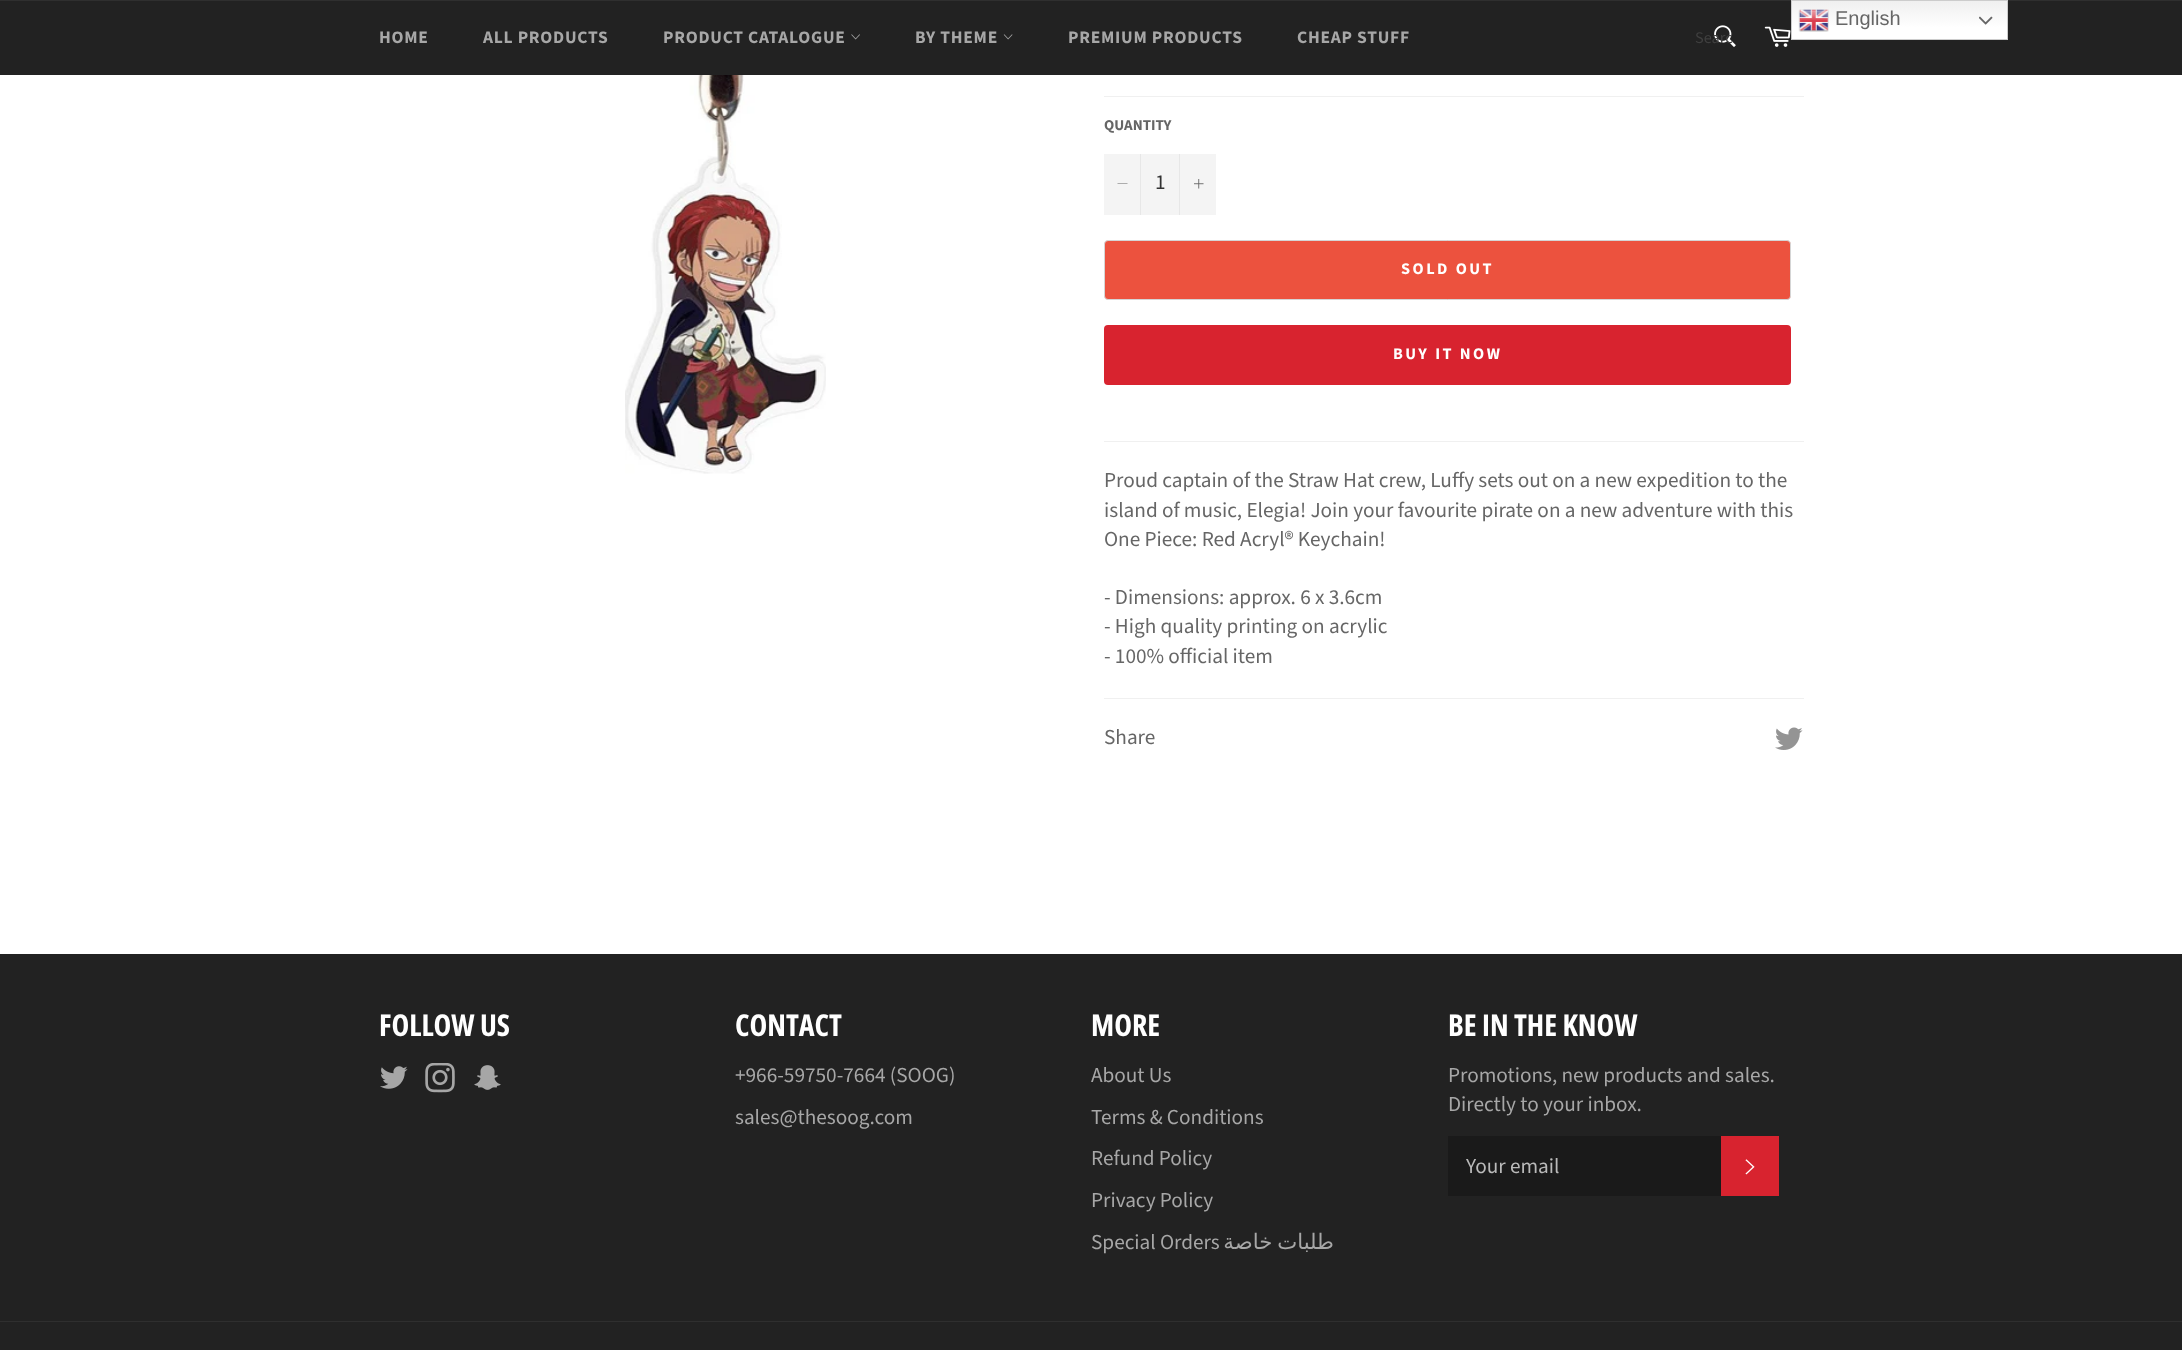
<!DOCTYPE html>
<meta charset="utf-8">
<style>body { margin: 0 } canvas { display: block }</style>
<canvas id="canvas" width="2182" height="1350"></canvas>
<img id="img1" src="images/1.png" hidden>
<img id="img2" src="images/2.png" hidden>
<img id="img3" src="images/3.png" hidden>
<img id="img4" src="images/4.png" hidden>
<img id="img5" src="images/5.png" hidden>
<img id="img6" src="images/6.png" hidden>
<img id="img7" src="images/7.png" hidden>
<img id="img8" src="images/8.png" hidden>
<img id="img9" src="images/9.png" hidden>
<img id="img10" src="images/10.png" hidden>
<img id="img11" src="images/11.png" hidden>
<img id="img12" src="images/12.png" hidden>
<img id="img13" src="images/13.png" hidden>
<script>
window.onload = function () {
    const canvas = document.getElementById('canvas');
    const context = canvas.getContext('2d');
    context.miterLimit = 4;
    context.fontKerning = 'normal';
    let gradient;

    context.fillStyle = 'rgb(255, 255, 255)';
    context.fillRect(0, 0, 2182, 1350);
    context.fillStyle = 'rgb(34, 34, 34)';
    context.fillRect(0, 1, 2182, 74);
    gradient = context.createLinearGradient(1899, 0, 1899, 40);
    gradient.addColorStop(0, 'rgb(239, 239, 239)');
    gradient.addColorStop(0.7, 'rgb(255, 255, 255)');
    context.fillStyle = gradient;
    context.fillRect(1792, 1, 215, 38);
    context.fillStyle = 'rgb(47, 47, 47)';
    context.fillRect(0, 0, 2182, 1);
    context.strokeStyle = 'rgb(204, 204, 204)';
    context.strokeRect(1791.5, 0.5, 216, 39);
    context.drawImage(document.getElementById('img1'), 1798, 9, 31, 23);
    context.drawImage(document.getElementById('img2'), 1979, 16, 14, 9);
    context.drawImage(document.getElementById('img3'), 851, 34, 9, 6);
    context.drawImage(document.getElementById('img4'), 1003, 34, 10, 6);
    context.drawImage(document.getElementById('img5'), 1714, 25, 22, 22);
    context.drawImage(document.getElementById('img6'), 1764, 26, 27, 21);
    context.drawImage(document.getElementById('img7'), 625, 75, 201, 399);
    context.fillStyle = 'rgb(240, 240, 240)';
    context.fillRect(1104, 96, 700, 1);
    context.fillStyle = 'rgb(244, 244, 244)';
    context.fillRect(1104, 154, 112, 61);
    context.fillStyle = 'rgb(231, 231, 231)';
    context.fillRect(1140, 154, 1, 61);
    context.fillStyle = 'rgb(102, 102, 102)';
    context.beginPath();
    context.moveTo(1127.5, 183.5);
    context.lineTo(1127.5, 184);
    context.lineTo(1117.5, 184);
    context.lineTo(1117.5, 183.5);
    context.closePath();
    context.fill('evenodd');
    context.fillStyle = 'rgb(231, 231, 231)';
    context.fillRect(1179, 154, 1, 61);
    context.drawImage(document.getElementById('img8'), 1194, 179, 10, 10);
    context.fillStyle = 'rgb(236, 82, 62)';
    context.beginPath();
    context.roundRect(1104.5, 240.5, 686, 59, 3.5);
    context.fill();
    context.strokeStyle = 'rgb(213, 213, 213)';
    context.stroke();
    context.fillStyle = 'rgb(216, 35, 47)';
    context.beginPath();
    context.roundRect(1104, 325, 687, 60, 4);
    context.fill();
    context.fillStyle = 'rgb(240, 240, 240)';
    context.fillRect(1104, 441, 700, 1);
    context.fillRect(1104, 698, 700, 1);
    context.drawImage(document.getElementById('img9'), 1775, 727, 28, 23);
    context.fillStyle = 'rgb(34, 34, 34)';
    context.fillRect(0, 954, 2182, 396);
    context.drawImage(document.getElementById('img10'), 380, 1066, 28, 23);
    context.drawImage(document.getElementById('img11'), 425, 1063, 30, 30);
    context.drawImage(document.getElementById('img12'), 474, 1065, 27, 25);
    context.fillStyle = 'rgb(26, 26, 26)';
    context.fillRect(1448, 1136, 273, 60);
    context.fillStyle = 'rgb(216, 35, 47)';
    context.fillRect(1721, 1136, 58, 60);
    context.drawImage(document.getElementById('img13'), 1745, 1159, 10, 16);
    context.fillStyle = 'rgb(47, 47, 47)';
    context.fillRect(0, 1321, 2182, 1);
    context.font = '20px Liberation Sans';
    context.fillStyle = 'rgb(102, 102, 102)';
    context.fillText('English', 1835, 25);
    context.letterSpacing = '0.75px';
    context.font = 'bold 17.5px Source Sans Pro';
    context.fillStyle = 'rgb(167, 167, 167)';
    context.fillText('HOME', 379, 43);
    context.fillText('ALL PRODUCTS', 483, 43);
    context.fillText('PRODUCT CATALOGUE', 663, 43);
    context.fillText('BY THEME', 915, 43);
    context.fillText('PREMIUM PRODUCTS', 1068, 43);
    context.fillText('CHEAP STUFF', 1297, 43);
    context.letterSpacing = '0px';
    context.font = '16.25px Source Sans Pro';
    context.fillStyle = 'rgb(63, 63, 63)';
    context.fillText('Searc', 1695, 43);
    context.font = 'bold 15px Source Sans Pro';
    context.fillStyle = 'rgb(102, 102, 102)';
    context.fillText('QUANTITY', 1104, 130);
    context.font = '21.25px Source Sans Pro';
    context.fillStyle = 'rgb(51, 51, 51)';
    context.fillText('1', 1155, 189);
    context.letterSpacing = '2.5px';
    context.font = 'bold 16.25px Source Sans Pro';
    context.fillStyle = 'rgb(255, 255, 255)';
    context.fillText('SOLD OUT', 1401, 274);
    context.fillText('BUY IT NOW', 1393, 359);
    context.letterSpacing = '0px';
    context.font = '21.25px Source Sans Pro';
    context.fillStyle = 'rgb(102, 102, 102)';
    context.fillText('Proud captain of the Straw Hat crew, Luffy sets out on a new expedition to the', 1104, 487);
    context.fillText('island of music, Elegia! Join your favourite pirate on a new adventure with this', 1104, 517);
    context.fillText('One Piece: Red Acryl® Keychain!', 1104, 546);
    context.fillText('- Dimensions: approx. 6 x 3.6cm', 1104, 604);
    context.fillText('- High quality printing on acrylic', 1104, 633);
    context.fillText('- 100% official item', 1104, 663);
    context.fillText('Share', 1104, 744);
    context.font = 'bold 30px Open Sans Condensed';
    context.fillStyle = 'rgb(255, 255, 255)';
    context.fillText('FOLLOW US', 379, 1036);
    context.fillText('CONTACT', 735, 1036);
    context.font = '21.25px Source Sans Pro';
    context.fillStyle = 'rgb(167, 167, 167)';
    context.fillText('+966-59750-7664 (SOOG)', 735, 1082);
    context.fillText('sales@thesoog.com', 735, 1124);
    context.font = 'bold 30px Open Sans Condensed';
    context.fillStyle = 'rgb(255, 255, 255)';
    context.fillText('MORE', 1091, 1036);
    context.font = '21.25px Source Sans Pro';
    context.fillStyle = 'rgb(167, 167, 167)';
    context.fillText('About Us', 1091, 1082);
    context.fillText('Terms & Conditions', 1091, 1124);
    context.fillText('Refund Policy', 1091, 1165);
    context.fillText('Privacy Policy', 1091, 1207);
    context.fillText('Special Orders', 1091, 1249);
    context.wordSpacing = '-2px';
    context.direction = 'rtl';
    context.font = '21.25px DejaVu Sans';
    context.fillText('طلبات خاصة', 1334, 1249);
    context.wordSpacing = '0px';
    context.direction = 'ltr';
    context.font = 'bold 30px Open Sans Condensed';
    context.fillStyle = 'rgb(255, 255, 255)';
    context.fillText('BE IN THE KNOW', 1448, 1036);
    context.font = '21.25px Source Sans Pro';
    context.fillStyle = 'rgb(167, 167, 167)';
    context.fillText('Promotions, new products and sales.', 1448, 1082);
    context.fillText('Directly to your inbox.', 1448, 1111);
    context.fillStyle = 'rgb(186, 186, 186)';
    context.fillText('Your email', 1466, 1173);
};
</script>
